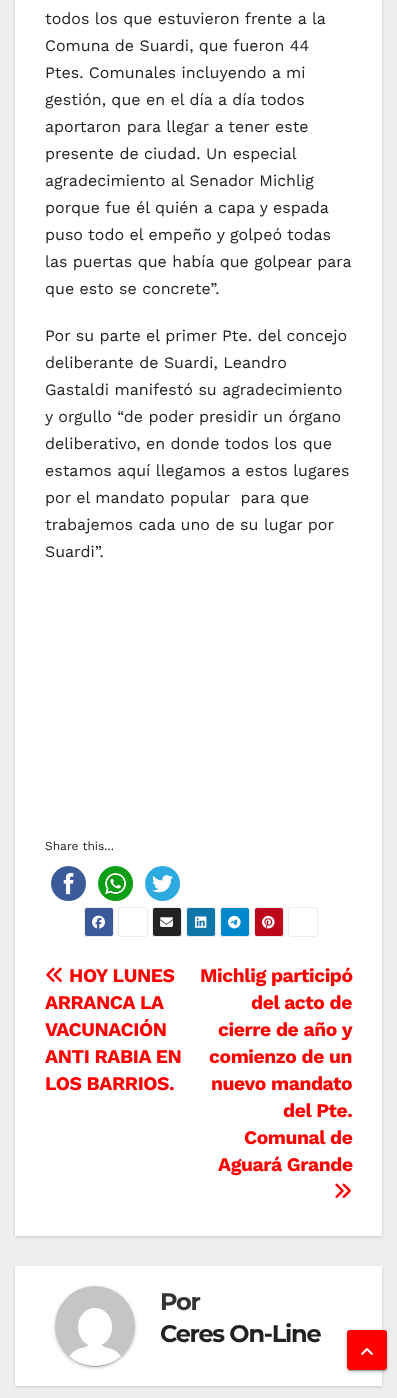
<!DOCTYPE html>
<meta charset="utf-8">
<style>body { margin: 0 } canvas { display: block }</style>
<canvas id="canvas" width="397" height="1398"></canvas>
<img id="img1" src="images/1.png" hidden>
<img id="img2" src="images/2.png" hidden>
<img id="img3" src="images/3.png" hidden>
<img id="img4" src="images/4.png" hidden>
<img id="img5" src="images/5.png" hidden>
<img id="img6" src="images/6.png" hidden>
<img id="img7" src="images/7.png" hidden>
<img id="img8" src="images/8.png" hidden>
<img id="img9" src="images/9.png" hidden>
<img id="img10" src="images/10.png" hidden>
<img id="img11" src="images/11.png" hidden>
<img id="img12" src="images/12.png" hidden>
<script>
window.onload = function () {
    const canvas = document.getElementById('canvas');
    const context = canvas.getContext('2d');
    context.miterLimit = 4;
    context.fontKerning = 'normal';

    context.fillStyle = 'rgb(238, 238, 238)';
    context.fillRect(0, 0, 397, 1398);
    context.fillStyle = 'rgba(0, 0, 0, 0.15)';
    context.filter = 'blur(1.5px)';
    context.beginPath();
    context.rect(15, -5, 367, 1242);
    context.fill();
    context.filter = 'none';
    context.fillStyle = 'rgb(255, 255, 255)';
    context.fillRect(15, 0, 367, 1236);
    context.drawImage(document.getElementById('img1'), 51, 866, 35, 35);
    context.drawImage(document.getElementById('img2'), 98, 866, 35, 35);
    context.drawImage(document.getElementById('img3'), 145, 866, 35, 35);
    context.fillStyle = 'rgb(59, 89, 152)';
    context.beginPath();
    context.roundRect(84.5, 907.5, 29, 29, 2.5);
    context.fill();
    context.strokeStyle = 'rgb(235, 235, 235)';
    context.stroke();
    context.drawImage(document.getElementById('img4'), 92, 915, 13, 14);
    context.beginPath();
    context.roundRect(118.5, 907.5, 29, 29, 2.5);
    context.stroke();
    context.fillStyle = 'rgb(34, 34, 34)';
    context.beginPath();
    context.roundRect(152.5, 907.5, 29, 29, 2.5);
    context.fill();
    context.stroke();
    context.drawImage(document.getElementById('img5'), 160, 917, 13, 10);
    context.fillStyle = 'rgb(14, 118, 168)';
    context.beginPath();
    context.roundRect(186.5, 907.5, 29, 29, 2.5);
    context.fill();
    context.stroke();
    context.drawImage(document.getElementById('img6'), 195, 916, 12, 12);
    context.fillStyle = 'rgb(0, 136, 204)';
    context.beginPath();
    context.roundRect(220.5, 907.5, 29, 29, 2.5);
    context.fill();
    context.stroke();
    context.drawImage(document.getElementById('img7'), 228, 915, 13, 14);
    context.fillStyle = 'rgb(189, 8, 28)';
    context.beginPath();
    context.roundRect(254.5, 907.5, 29, 29, 2.5);
    context.fill();
    context.stroke();
    context.drawImage(document.getElementById('img8'), 262, 915, 13, 14);
    context.beginPath();
    context.roundRect(288.5, 907.5, 29, 29, 2.5);
    context.stroke();
    context.drawImage(document.getElementById('img9'), 46, 967, 16, 15);
    context.drawImage(document.getElementById('img10'), 335, 1183, 16, 15);
    context.fillStyle = 'rgba(0, 0, 0, 0.15)';
    context.filter = 'blur(1.5px)';
    context.beginPath();
    context.rect(15, 1267, 367, 120);
    context.fill();
    context.filter = 'none';
    context.fillStyle = 'rgb(255, 255, 255)';
    context.fillRect(15, 1266, 367, 120);
    context.fillStyle = 'rgba(0, 0, 0, 0.12)';
    context.filter = 'blur(2.5px)';
    context.beginPath();
    context.roundRect(55, 1287, 80, 80, 40);
    context.fill();
    context.filter = 'none';
    context.fillStyle = 'rgba(0, 0, 0, 0.2)';
    context.filter = 'blur(0.5px)';
    context.beginPath();
    context.roundRect(57, 1291, 76, 76, 38);
    context.fill();
    context.filter = 'none';
    context.fillStyle = 'rgba(0, 0, 0, 0.14)';
    context.filter = 'blur(1px)';
    context.beginPath();
    context.roundRect(55, 1288, 80, 80, 40);
    context.fill();
    context.filter = 'none';
    context.drawImage(document.getElementById('img11'), 55, 1286, 80, 80);
    context.fillStyle = 'rgba(0, 0, 0, 0.12)';
    context.filter = 'blur(2.5px)';
    context.beginPath();
    context.roundRect(347, 1331, 40, 40, 3);
    context.fill();
    context.filter = 'none';
    context.fillStyle = 'rgba(0, 0, 0, 0.2)';
    context.filter = 'blur(0.5px)';
    context.beginPath();
    context.roundRect(349, 1335, 36, 36, 1);
    context.fill();
    context.filter = 'none';
    context.fillStyle = 'rgba(0, 0, 0, 0.14)';
    context.filter = 'blur(1px)';
    context.beginPath();
    context.roundRect(347, 1332, 40, 40, 3);
    context.fill();
    context.filter = 'none';
    context.fillStyle = 'rgb(255, 0, 0)';
    context.beginPath();
    context.roundRect(348, 1331, 38, 38, 2);
    context.fill();
    context.strokeStyle = 'rgb(255, 0, 0)';
    context.lineWidth = 2;
    context.stroke();
    context.drawImage(document.getElementById('img12'), 361, 1348, 12, 7);
    context.font = '16px Work Sans';
    context.fillStyle = 'rgb(34, 34, 34)';
    context.fillText('todos los que estuvieron frente a la', 45, 24);
    context.fillText('Comuna de Suardi, que fueron 44', 45, 51);
    context.fillText('Ptes. Comunales incluyendo a mi', 45, 78);
    context.fillText('gestión, que en el día a día todos', 45, 105);
    context.fillText('aportaron para llegar a tener este', 45, 132);
    context.fillText('presente de ciudad. Un especial', 45, 159);
    context.fillText('agradecimiento al Senador Michlig', 45, 186);
    context.fillText('porque fue él quién a capa y espada', 45, 213);
    context.fillText('puso todo el empeño y golpeó todas', 45, 240);
    context.fillText('las puertas que había que golpear para', 45, 267);
    context.fillText('que esto se concrete”.', 45, 294);
    context.fillText('Por su parte el primer Pte. del concejo', 45, 341);
    context.fillText('deliberante de Suardi, Leandro', 45, 368);
    context.fillText('Gastaldi manifestó su agradecimiento', 45, 395);
    context.fillText('y orgullo “de poder presidir un órgano', 45, 422);
    context.fillText('deliberativo, en donde todos los que', 45, 449);
    context.fillText('estamos aquí llegamos a estos lugares', 45, 476);
    context.fillText('por el mandato popular  para que', 45, 503);
    context.fillText('trabajemos cada uno de su lugar por', 45, 530);
    context.fillText('Suardi”.', 45, 557);
    context.font = '12px Work Sans';
    context.fillText('Share this...', 45, 850);
    context.letterSpacing = '-0.4px';
    context.font = 'bold 19.25px Work Sans';
    context.fillStyle = 'rgb(255, 0, 0)';
    context.fillText('HOY LUNES', 69, 982);
    context.fillText('ARRANCA LA', 45, 1009);
    context.fillText('VACUNACIÓN', 45, 1036);
    context.fillText('ANTI RABIA EN', 45, 1063);
    context.fillText('LOS BARRIOS.', 45, 1090);
    context.fillText('Michlig participó', 200, 982);
    context.fillText('del acto de', 251, 1009);
    context.fillText('cierre de año y', 218, 1036);
    context.fillText('comienzo de un', 209, 1063);
    context.fillText('nuevo mandato', 211, 1090);
    context.fillText('del Pte.', 283, 1117);
    context.fillText('Comunal de', 244, 1144);
    context.fillText('Aguará Grande', 218, 1171);
    context.letterSpacing = '-1.25px';
    context.font = 'bold 24px Montserrat';
    context.fillStyle = 'rgb(51, 51, 51)';
    context.fillText('Por', 160, 1310);
    context.fillStyle = 'rgb(34, 34, 34)';
    context.fillText('Ceres On-Line', 160, 1342);
};
</script>
